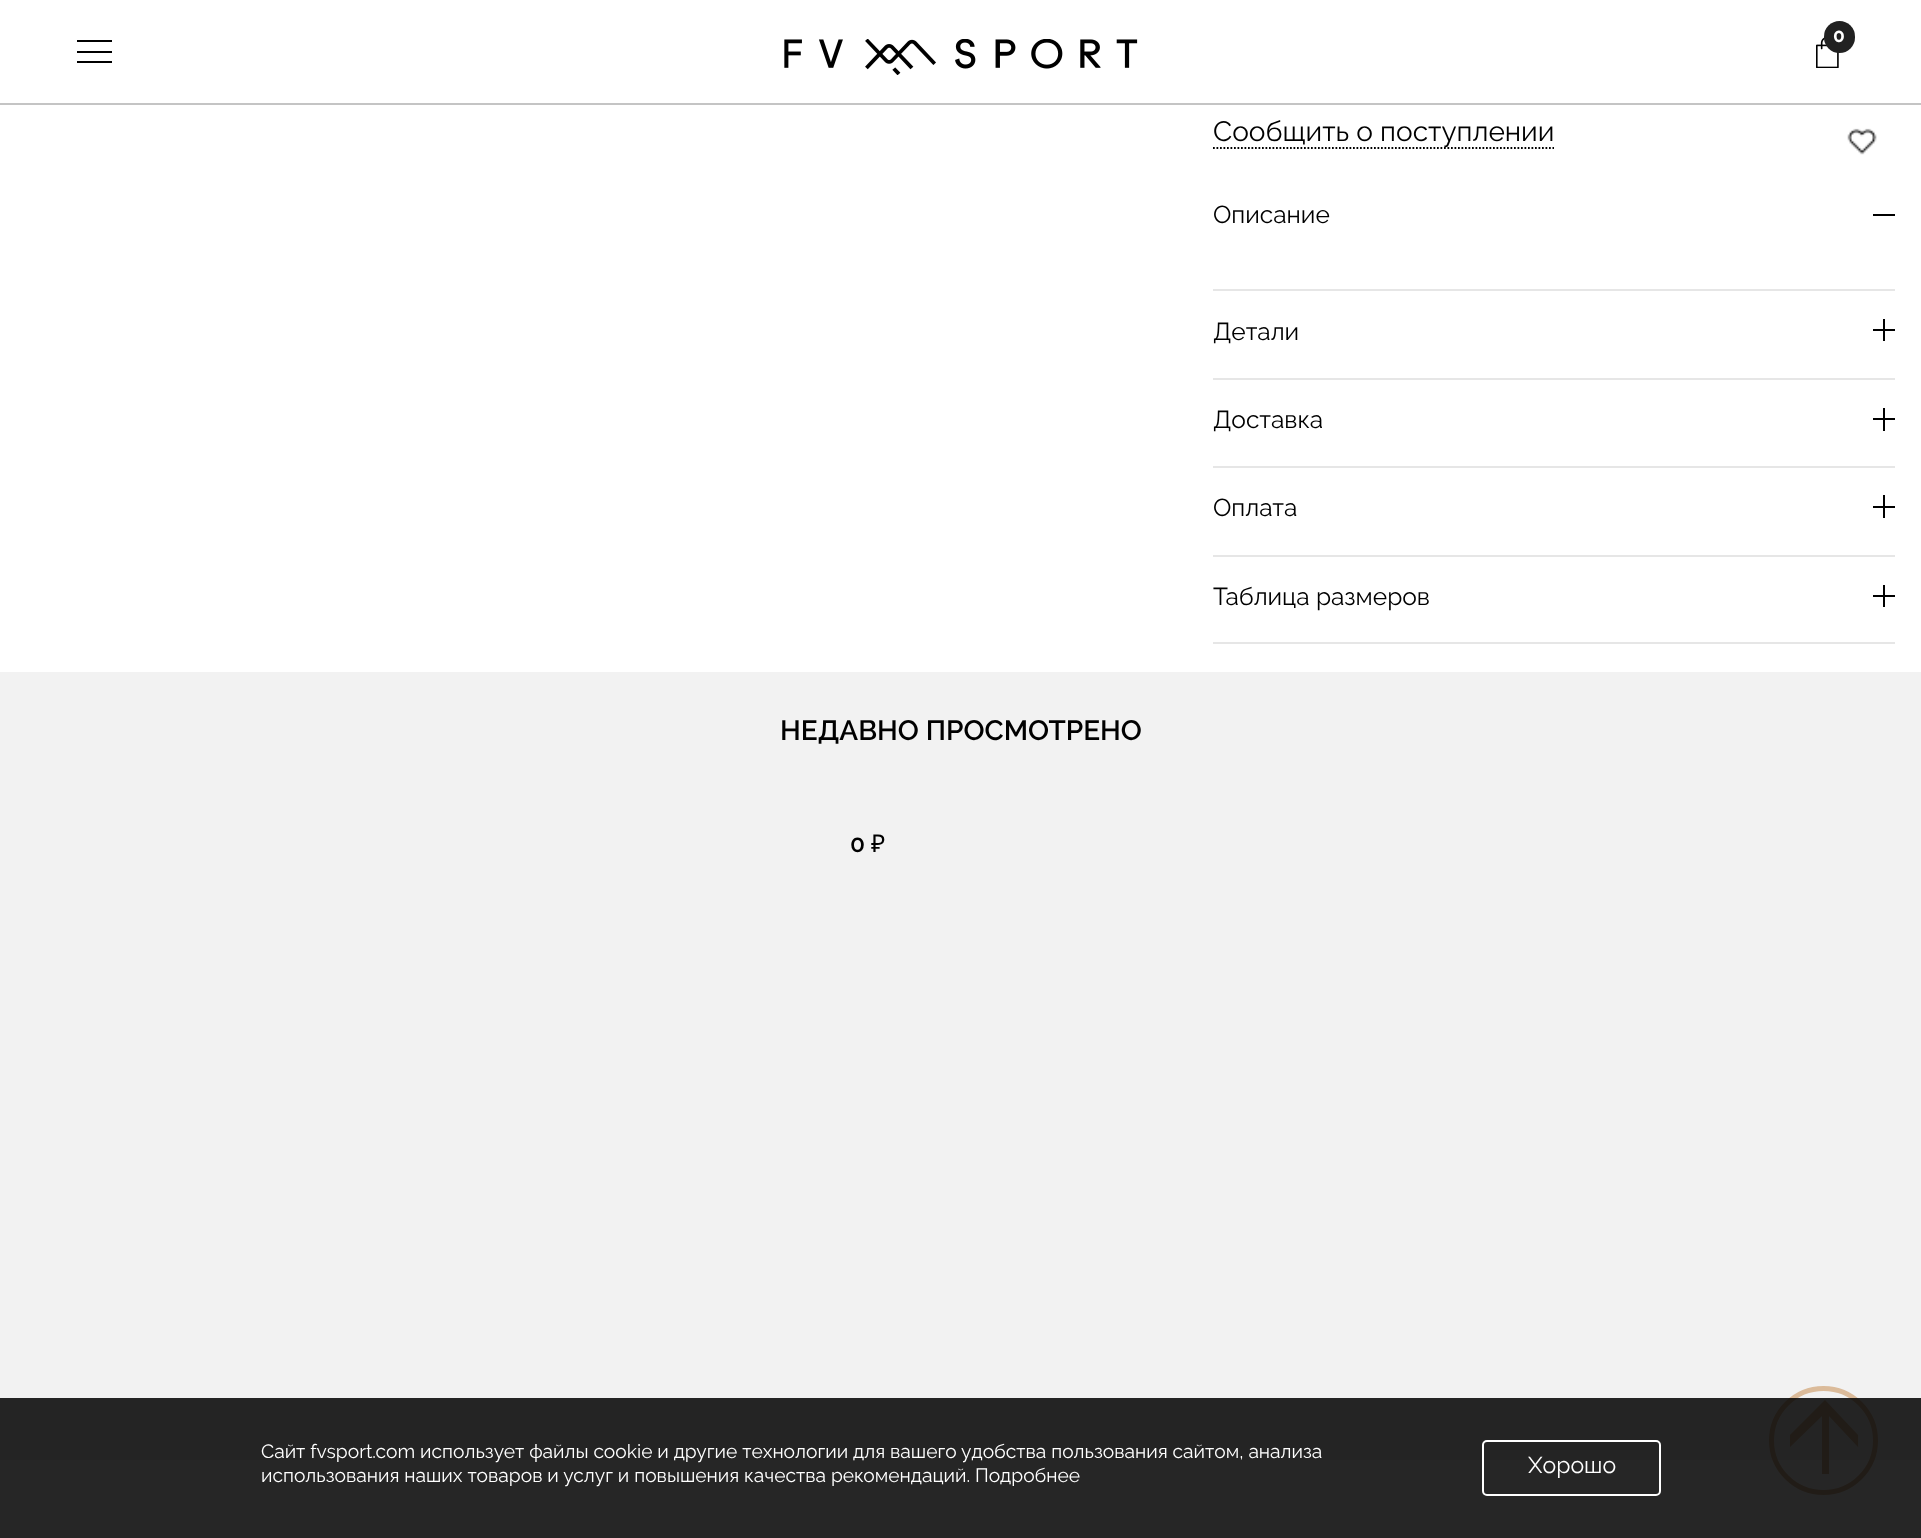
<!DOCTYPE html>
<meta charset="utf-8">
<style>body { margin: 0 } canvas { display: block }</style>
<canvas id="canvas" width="1921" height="1538"></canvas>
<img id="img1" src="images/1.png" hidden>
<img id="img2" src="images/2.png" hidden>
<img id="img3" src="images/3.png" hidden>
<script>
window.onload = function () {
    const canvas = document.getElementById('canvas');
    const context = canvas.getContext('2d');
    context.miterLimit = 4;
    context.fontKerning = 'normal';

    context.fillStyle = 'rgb(255, 255, 255)';
    context.fillRect(0, 0, 1921, 1538);
    context.drawImage(document.getElementById('img1'), 1816, 37, 23, 31);
    context.fillStyle = 'rgb(33, 33, 33)';
    context.beginPath();
    context.roundRect(1824, 21, 31, 32, 15.5);
    context.fill();
    context.fillStyle = 'rgb(0, 0, 0)';
    context.fillRect(77, 51, 35, 2);
    context.fillRect(77, 40, 35, 2);
    context.fillRect(77, 61, 35, 2);
    context.drawImage(document.getElementById('img2'), 784, 39, 354, 36);
    context.fillStyle = 'rgb(196, 196, 196)';
    context.fillRect(0, 103, 1921, 2);
    context.beginPath();
    context.moveTo(1213, 148);
    context.lineTo(1554, 148);
    context.strokeStyle = 'rgb(0, 0, 0)';
    context.lineWidth = 1.8;
    context.setLineDash([1.75, 1.75]);
    context.stroke();
    context.drawImage(document.getElementById('img3'), 1847, 128, 30, 27);
    context.fillStyle = 'rgb(230, 230, 230)';
    context.fillRect(1213, 289, 682, 2);
    context.fillStyle = 'rgb(0, 0, 0)';
    context.fillRect(1873, 214, 22, 2);
    context.fillStyle = 'rgb(230, 230, 230)';
    context.fillRect(1213, 378, 682, 2);
    context.fillStyle = 'rgb(0, 0, 0)';
    context.fillRect(1873, 329, 22, 2);
    context.fillRect(1883, 319, 2, 22);
    context.fillStyle = 'rgb(230, 230, 230)';
    context.fillRect(1213, 466, 682, 2);
    context.fillStyle = 'rgb(0, 0, 0)';
    context.fillRect(1873, 418, 22, 2);
    context.fillRect(1883, 408, 2, 23);
    context.fillStyle = 'rgb(230, 230, 230)';
    context.fillRect(1213, 555, 682, 2);
    context.fillStyle = 'rgb(0, 0, 0)';
    context.fillRect(1873, 506, 22, 2);
    context.fillRect(1883, 495, 2, 23);
    context.fillStyle = 'rgb(230, 230, 230)';
    context.fillRect(1213, 642, 682, 2);
    context.fillStyle = 'rgb(0, 0, 0)';
    context.fillRect(1873, 595, 22, 2);
    context.fillRect(1883, 585, 2, 22);
    context.fillStyle = 'rgb(242, 242, 242)';
    context.fillRect(0, 672, 1921, 788);
    context.beginPath();
    context.arc(1823.5, 1440.5, 52, 0, 2 * Math.PI);
    context.strokeStyle = 'rgba(212, 172, 131, 0.8)';
    context.lineWidth = 5;
    context.setLineDash([]);
    context.stroke();
    context.fillStyle = 'rgba(212, 172, 131, 0.8)';
    context.beginPath();
    context.moveTo(1790, 1447);
    context.lineTo(1822, 1416);
    context.lineTo(1822, 1474);
    context.lineTo(1829, 1474);
    context.lineTo(1829, 1416);
    context.lineTo(1858, 1447);
    context.lineTo(1858, 1435);
    context.lineTo(1825, 1400);
    context.lineTo(1790, 1435);
    context.closePath();
    context.fill('evenodd');
    context.beginPath();
    context.moveTo(1790, 1447);
    context.lineTo(1822, 1416);
    context.lineTo(1822, 1473.5);
    context.lineTo(1829, 1473.5);
    context.lineTo(1829, 1416);
    context.lineTo(1858.5, 1447);
    context.lineTo(1858.5, 1435);
    context.lineTo(1825, 1400);
    context.lineTo(1790, 1435);
    context.closePath();
    context.strokeStyle = 'rgb(218, 186, 153)';
    context.lineWidth = 0.1;
    context.stroke();
    context.fillStyle = 'rgba(0, 0, 0, 0.85)';
    context.fillRect(0, 1398, 1921, 140);
    context.beginPath();
    context.roundRect(1483, 1441, 177, 54, 4);
    context.strokeStyle = 'rgb(255, 255, 255)';
    context.lineWidth = 2;
    context.stroke();
    context.font = 'bold 19.25px "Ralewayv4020"';
    context.fillStyle = 'rgb(255, 255, 255)';
    context.fillText('0', 1833, 42);
    context.font = '28px "Ralewayv4020"';
    context.fillStyle = 'rgb(0, 0, 0)';
    context.fillText('Сообщить о поступлении', 1213, 141);
    context.font = '24.5px "Ralewayv4020"';
    context.fillText('Описание', 1213, 223);
    context.fillText('Детали', 1213, 340);
    context.fillText('Доставка', 1213, 428);
    context.fillText('Оплата', 1213, 516);
    context.fillText('Таблица размеров', 1213, 605);
    context.font = '600 28px "Ralewayv4020"';
    context.fillText('НЕДАВНО ПРОСМОТРЕНО', 780, 740);
    context.font = '600 24.5px "Ralewayv4020"';
    context.fillText('0', 850, 852);
    context.font = '24.5px Noto Sans';
    context.fillText('₽', 871, 852);
    context.font = '19.25px "Ralewayv4020"';
    context.fillStyle = 'rgb(255, 255, 255)';
    context.fillText('Cайт fvsport.com использует файлы cookie и другие технологии для вашего удобства пользования сайтом, анализа', 261, 1458);
    context.fillText('использования наших товаров и услуг и повышения качества рекомендаций. Подробнее', 261, 1482);
    context.font = '23px "Ralewayv4020"';
    context.fillText('Хорошо', 1528, 1473);
};
</script>
